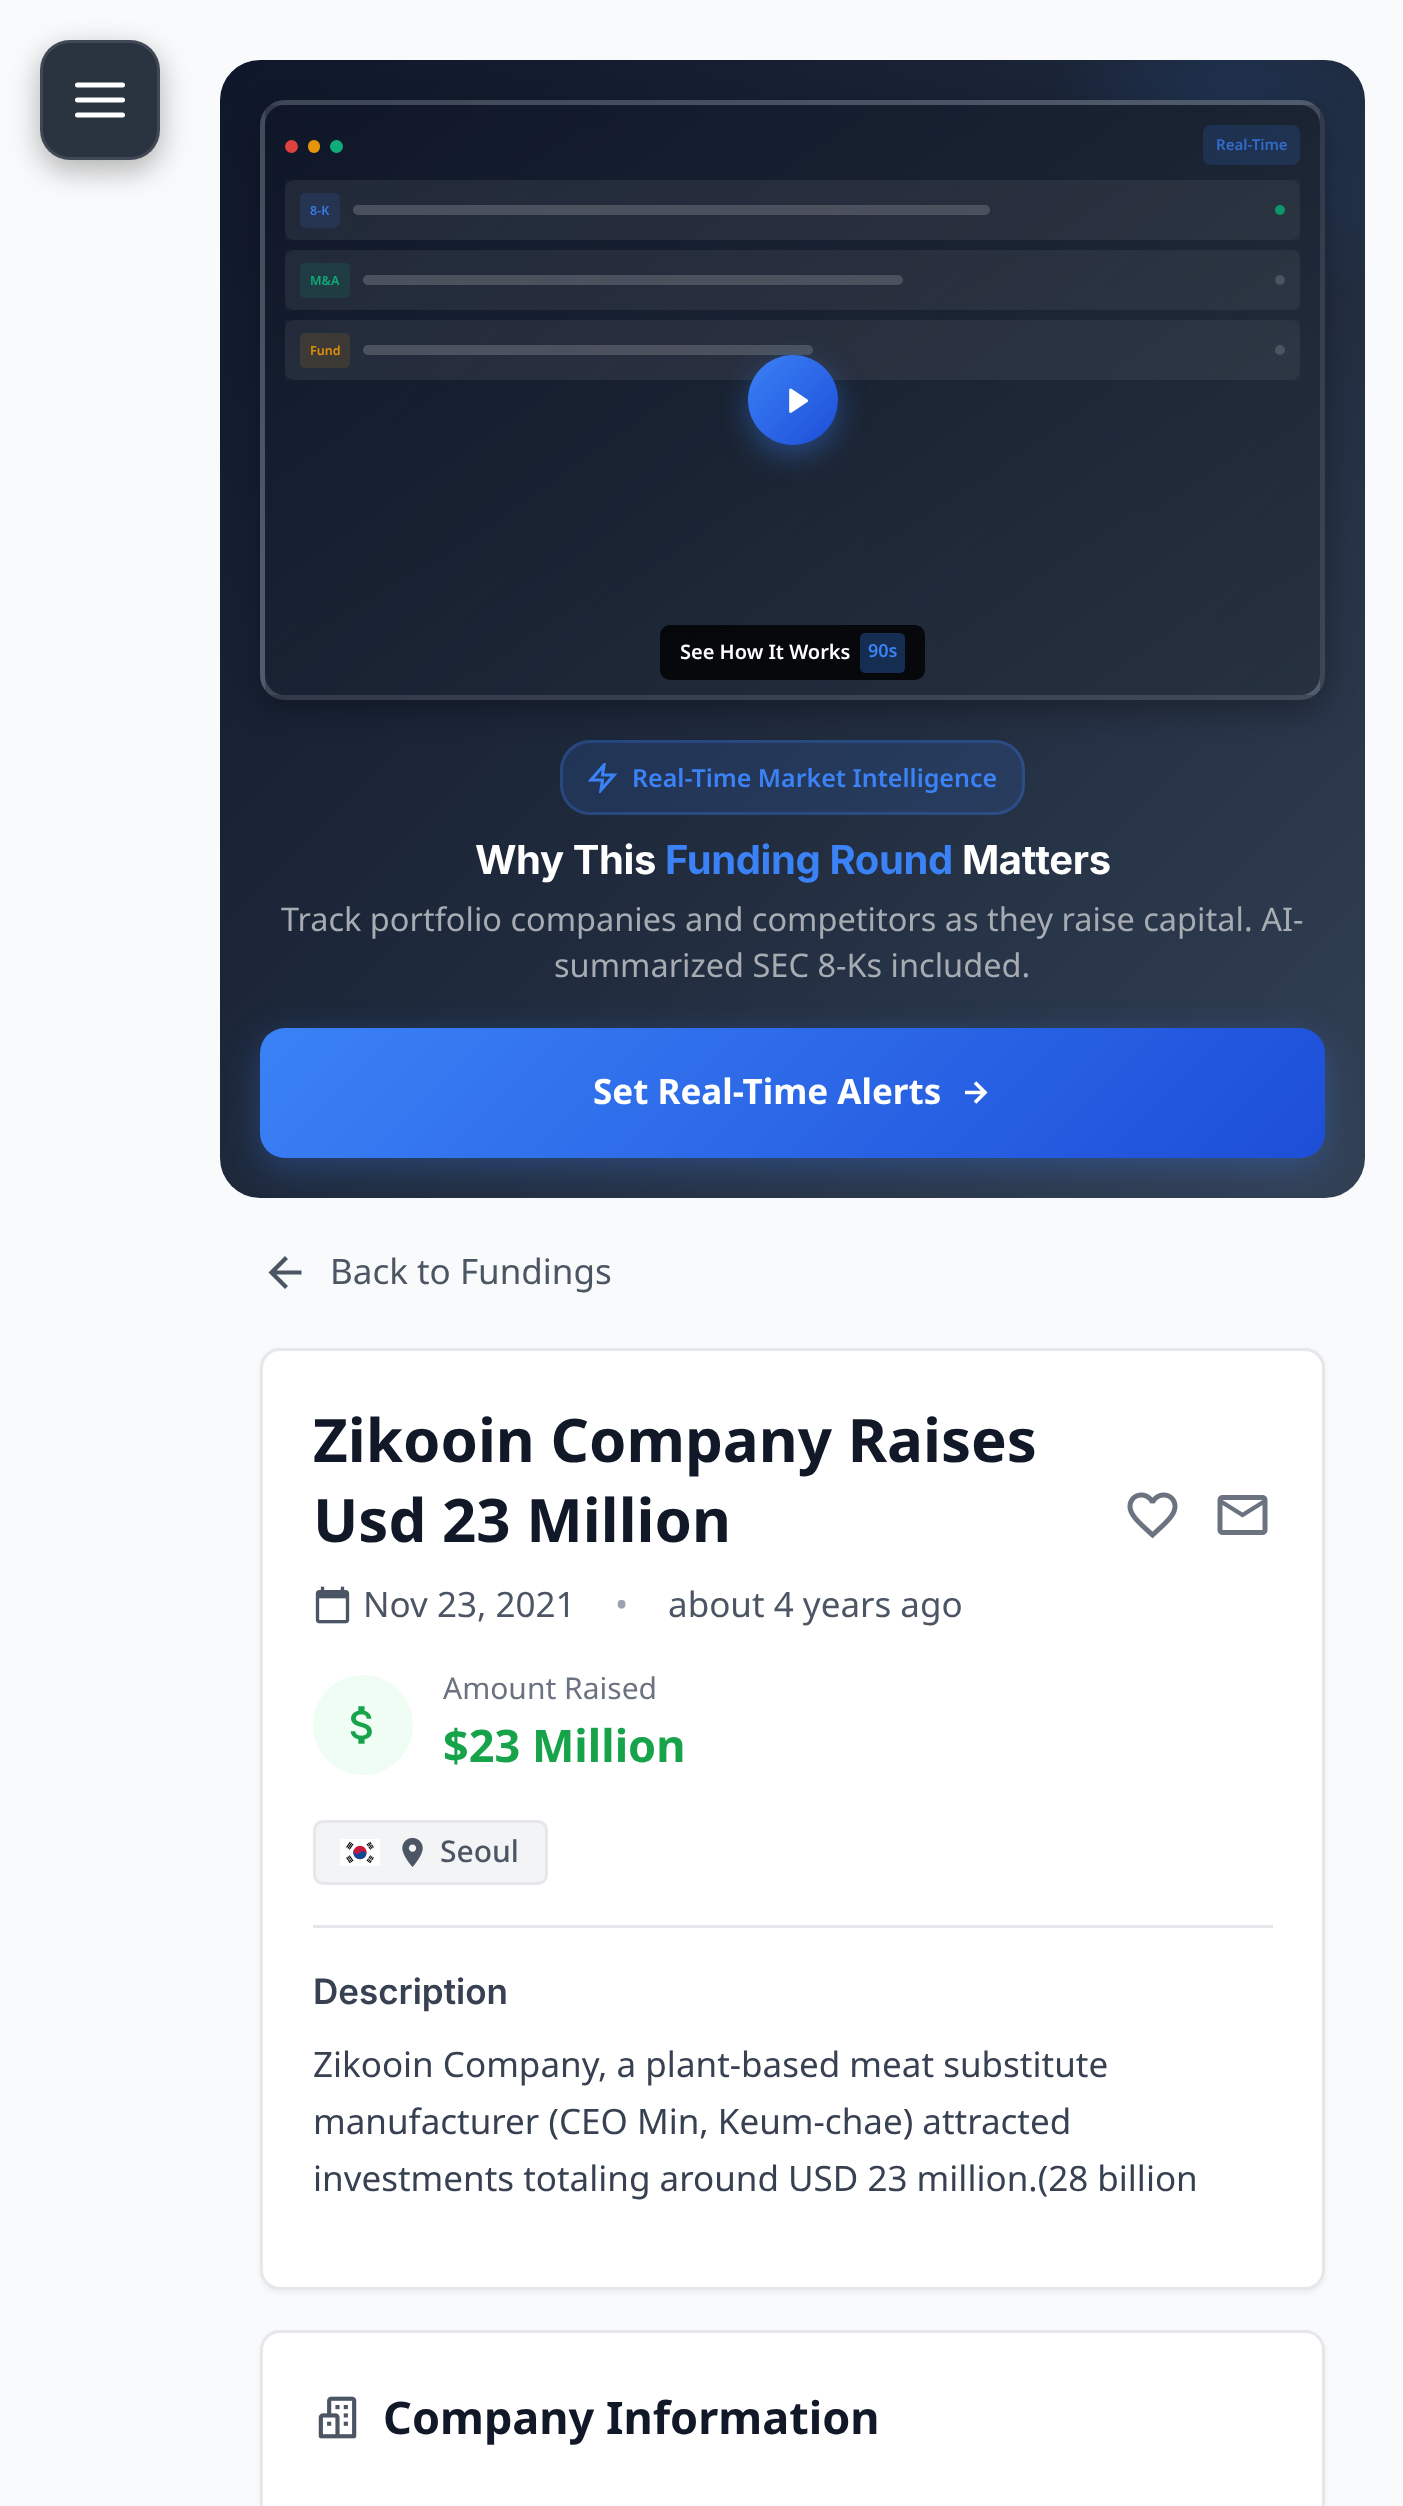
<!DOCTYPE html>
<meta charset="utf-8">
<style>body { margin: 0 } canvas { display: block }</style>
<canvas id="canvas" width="1403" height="2506"></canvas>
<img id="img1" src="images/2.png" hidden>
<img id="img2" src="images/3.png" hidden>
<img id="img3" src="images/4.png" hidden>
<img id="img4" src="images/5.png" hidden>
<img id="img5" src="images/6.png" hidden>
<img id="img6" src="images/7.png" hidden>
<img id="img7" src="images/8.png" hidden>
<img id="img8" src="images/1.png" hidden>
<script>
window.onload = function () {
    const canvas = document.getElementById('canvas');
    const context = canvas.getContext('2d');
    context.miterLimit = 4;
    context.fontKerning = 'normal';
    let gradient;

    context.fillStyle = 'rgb(249, 250, 251)';
    context.fillRect(0, 0, 1403, 2506);
    context.save();
    context.beginPath();
    context.moveTo(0, 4);
    context.lineTo(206, 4);
    context.lineTo(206, 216);
    context.lineTo(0, 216);
    context.closePath();
    context.moveTo(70, 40);
    context.lineTo(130, 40);
    context.bezierCurveTo(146.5, 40, 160, 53.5, 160, 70);
    context.lineTo(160, 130);
    context.bezierCurveTo(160, 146.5, 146.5, 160, 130, 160);
    context.lineTo(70, 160);
    context.bezierCurveTo(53.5, 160, 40, 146.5, 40, 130);
    context.lineTo(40, 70);
    context.bezierCurveTo(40, 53.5, 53.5, 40, 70, 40);
    context.closePath();
    context.clip('evenodd');
    context.fillStyle = 'rgba(0, 0, 0, 0.3)';
    context.filter = 'blur(15px)';
    context.beginPath();
    context.roundRect(40, 50, 120, 120, 30);
    context.fill();
    context.filter = 'none';
    context.restore();
    context.fillStyle = 'rgba(31, 41, 55, 0.95)';
    context.beginPath();
    context.roundRect(40, 40, 120, 120, 30);
    context.fill();
    context.beginPath();
    context.roundRect(41.5, 41.5, 117, 117, 28.5);
    context.strokeStyle = 'rgba(255, 255, 255, 0.1)';
    context.lineWidth = 3;
    context.stroke();
    context.beginPath();
    context.moveTo(77.5, 100);
    context.lineTo(122.5, 100);
    context.moveTo(77.5, 85);
    context.lineTo(122.5, 85);
    context.moveTo(77.5, 115);
    context.lineTo(122.5, 115);
    context.strokeStyle = 'rgb(255, 255, 255)';
    context.lineWidth = 5;
    context.lineCap = 'round';
    context.lineJoin = 'round';
    context.stroke();
    gradient = context.createLinearGradient(222, 58, 1363, 1199);
    gradient.addColorStop(0, 'rgb(15, 23, 42)');
    gradient.addColorStop(0.5, 'rgb(30, 41, 59)');
    gradient.addColorStop(1, 'rgb(51, 65, 85)');
    context.fillStyle = gradient;
    context.beginPath();
    context.roundRect(220, 60, 1145, 1138, 40);
    context.fill();
    context.save();
    context.beginPath();
    context.roundRect(220, 60, 1145, 1138, 40);
    context.clip();
    gradient = context.createRadialGradient(1228, 148, 0, 1228, 148, 265);
    gradient.addColorStop(0, 'rgba(59, 130, 246, 0.15)');
    gradient.addColorStop(0.7, 'rgba(59, 130, 246, 0)');
    context.fillStyle = gradient;
    context.beginPath();
    context.arc(1227.5, 147.5, 187.5, 0, 2 * Math.PI);
    context.fill();
    context.restore();
    context.fillStyle = 'rgba(59, 130, 246, 0.15)';
    context.beginPath();
    context.roundRect(560, 740, 465, 75, 30);
    context.fill();
    context.beginPath();
    context.roundRect(561.5, 741.5, 462, 72, 28.5);
    context.strokeStyle = 'rgba(59, 130, 246, 0.25)';
    context.lineWidth = 3;
    context.lineJoin = 'miter';
    context.stroke();
    context.fillStyle = 'rgba(0, 0, 0, 0.3)';
    context.filter = 'blur(15px)';
    context.beginPath();
    context.roundRect(260, 110, 1065, 600, 25);
    context.fill();
    context.filter = 'none';
    context.save();
    context.beginPath();
    context.roundRect(260, 100, 1065, 600, 25);
    context.clip();
    gradient = context.createLinearGradient(480, -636, 1105, 256);
    gradient.addColorStop(0, 'rgb(15, 23, 42)');
    gradient.addColorStop(0.5, 'rgb(30, 41, 59)');
    gradient.addColorStop(1, 'rgb(51, 65, 85)');
    context.fillStyle = gradient;
    context.fillRect(265, 100, 1055, 5);
    gradient = context.createLinearGradient(-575, -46, 50, 846);
    gradient.addColorStop(0, 'rgb(15, 23, 42)');
    gradient.addColorStop(0.5, 'rgb(30, 41, 59)');
    gradient.addColorStop(1, 'rgb(51, 65, 85)');
    context.fillStyle = gradient;
    context.fillRect(260, 105, 5, 590);
    gradient = context.createLinearGradient(480, -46, 1105, 846);
    gradient.addColorStop(0, 'rgb(15, 23, 42)');
    gradient.addColorStop(0.5, 'rgb(30, 41, 59)');
    gradient.addColorStop(1, 'rgb(51, 65, 85)');
    context.fillStyle = gradient;
    context.fillRect(265, 105, 1055, 590);
    gradient = context.createLinearGradient(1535, -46, 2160, 846);
    gradient.addColorStop(0, 'rgb(15, 23, 42)');
    gradient.addColorStop(0.5, 'rgb(30, 41, 59)');
    gradient.addColorStop(1, 'rgb(51, 65, 85)');
    context.fillStyle = gradient;
    context.fillRect(1320, 105, 5, 590);
    gradient = context.createLinearGradient(480, 544, 1105, 1436);
    gradient.addColorStop(0, 'rgb(15, 23, 42)');
    gradient.addColorStop(0.5, 'rgb(30, 41, 59)');
    gradient.addColorStop(1, 'rgb(51, 65, 85)');
    context.fillStyle = gradient;
    context.fillRect(265, 695, 1055, 5);
    context.restore();
    context.beginPath();
    context.roundRect(262.5, 102.5, 1060, 595, 22.5);
    context.strokeStyle = 'rgba(255, 255, 255, 0.15)';
    context.lineWidth = 5;
    context.stroke();
    context.fillStyle = 'rgb(239, 68, 68)';
    context.beginPath();
    context.arc(291.5, 146.5, 6.5, 0, 2 * Math.PI);
    context.fill();
    context.fillStyle = 'rgb(245, 158, 11)';
    context.beginPath();
    context.roundRect(308, 140, 12, 13, 6);
    context.fill();
    context.fillStyle = 'rgb(16, 185, 129)';
    context.beginPath();
    context.arc(336.5, 146.5, 6.5, 0, 2 * Math.PI);
    context.fill();
    context.fillStyle = 'rgba(59, 130, 246, 0.2)';
    context.beginPath();
    context.roundRect(1203, 125, 97, 40, 8);
    context.fill();
    context.fillStyle = 'rgba(255, 255, 255, 0.03)';
    context.fillRect(285, 180, 1015, 60);
    context.fillStyle = 'rgba(255, 255, 255, 0.05)';
    context.beginPath();
    context.moveTo(295, 180);
    context.lineTo(1290, 180);
    context.bezierCurveTo(1296, 180, 1300, 184, 1300, 190);
    context.lineTo(1300, 230);
    context.bezierCurveTo(1300, 236, 1296, 240, 1290, 240);
    context.lineTo(295, 240);
    context.bezierCurveTo(289, 240, 285, 236, 285, 230);
    context.lineTo(285, 190);
    context.bezierCurveTo(285, 184, 289, 180, 295, 180);
    context.closePath();
    context.fill();
    context.fillStyle = 'rgb(40, 56, 87)';
    context.beginPath();
    context.roundRect(300, 193, 40, 35, 5);
    context.fill();
    context.fillStyle = 'rgba(255, 255, 255, 0.2)';
    context.beginPath();
    context.roundRect(353, 205, 637, 10, 5);
    context.fill();
    context.fillStyle = 'rgb(16, 185, 129)';
    context.beginPath();
    context.arc(1280, 210, 5, 0, 2 * Math.PI);
    context.fill();
    context.fillStyle = 'rgba(255, 255, 255, 0.03)';
    context.fillRect(285, 250, 1015, 60);
    context.fillStyle = 'rgba(255, 255, 255, 0.05)';
    context.beginPath();
    context.moveTo(295, 250);
    context.lineTo(1290, 250);
    context.bezierCurveTo(1296, 250, 1300, 254, 1300, 260);
    context.lineTo(1300, 300);
    context.bezierCurveTo(1300, 306, 1296, 310, 1290, 310);
    context.lineTo(295, 310);
    context.bezierCurveTo(289, 310, 285, 306, 285, 300);
    context.lineTo(285, 260);
    context.bezierCurveTo(285, 254, 289, 250, 295, 250);
    context.closePath();
    context.fill();
    context.fillStyle = 'rgb(35, 65, 73)';
    context.beginPath();
    context.roundRect(300, 263, 50, 35, 5);
    context.fill();
    context.fillStyle = 'rgba(255, 255, 255, 0.2)';
    context.beginPath();
    context.roundRect(363, 275, 540, 10, 5);
    context.fill();
    context.fillStyle = 'rgb(94, 103, 117)';
    context.beginPath();
    context.arc(1280, 280, 5, 0, 2 * Math.PI);
    context.fill();
    context.fillStyle = 'rgba(255, 255, 255, 0.03)';
    context.fillRect(285, 320, 1015, 60);
    context.fillStyle = 'rgba(255, 255, 255, 0.05)';
    context.beginPath();
    context.moveTo(295, 320);
    context.lineTo(1290, 320);
    context.bezierCurveTo(1296, 320, 1300, 324, 1300, 330);
    context.lineTo(1300, 370);
    context.bezierCurveTo(1300, 376, 1296, 380, 1290, 380);
    context.lineTo(295, 380);
    context.bezierCurveTo(289, 380, 285, 376, 285, 370);
    context.lineTo(285, 330);
    context.bezierCurveTo(285, 324, 289, 320, 295, 320);
    context.closePath();
    context.fill();
    context.fillStyle = 'rgb(67, 63, 58)';
    context.beginPath();
    context.roundRect(300, 333, 50, 35, 5);
    context.fill();
    context.fillStyle = 'rgba(255, 255, 255, 0.2)';
    context.beginPath();
    context.roundRect(363, 345, 450, 10, 5);
    context.fill();
    context.fillStyle = 'rgb(96, 105, 119)';
    context.beginPath();
    context.arc(1280, 350, 5, 0, 2 * Math.PI);
    context.fill();
    context.save();
    context.beginPath();
    context.rect(588, 763, 30, 30);
    context.clip();
    context.beginPath();
    context.moveTo(604, 765);
    context.lineTo(591, 780);
    context.lineTo(602.5, 780);
    context.lineTo(601, 790);
    context.lineTo(614, 775);
    context.lineTo(602.5, 775);
    context.closePath();
    context.strokeStyle = 'rgb(59, 130, 246)';
    context.lineWidth = 3.1;
    context.lineCap = 'butt';
    context.stroke();
    context.restore();
    context.fillStyle = 'rgba(59, 130, 246, 0.3)';
    context.filter = 'blur(17.5px)';
    context.beginPath();
    context.roundRect(260, 1038, 1065, 130, 25);
    context.fill();
    context.filter = 'none';
    gradient = context.createLinearGradient(494, 794, 1091, 1391);
    gradient.addColorStop(0, 'rgb(59, 130, 246)');
    gradient.addColorStop(1, 'rgb(29, 78, 216)');
    context.fillStyle = gradient;
    context.beginPath();
    context.roundRect(260, 1028, 1065, 130, 25);
    context.fill();
    context.beginPath();
    context.moveTo(965, 1092.5);
    context.lineTo(985, 1092.5);
    context.moveTo(975, 1082.5);
    context.lineTo(985, 1092.5);
    context.lineTo(975, 1102.5);
    context.strokeStyle = 'rgb(255, 255, 255)';
    context.lineWidth = 3.6;
    context.lineCap = 'butt';
    context.stroke();
    context.fillStyle = 'rgb(75, 85, 99)';
    context.beginPath();
    context.moveTo(301.5, 1270.5);
    context.lineTo(276.5, 1270.5);
    context.lineTo(288, 1259);
    context.lineTo(285, 1256);
    context.lineTo(268.5, 1272.5);
    context.lineTo(285, 1289);
    context.lineTo(288, 1286);
    context.lineTo(276.5, 1274.5);
    context.lineTo(301.5, 1274.5);
    context.closePath();
    context.fill();
    context.fillStyle = 'rgba(0, 0, 0, 0.05)';
    context.filter = 'blur(2.5px)';
    context.beginPath();
    context.roundRect(260, 1350, 1065, 943, 20);
    context.fill();
    context.filter = 'none';
    context.fillStyle = 'rgb(255, 255, 255)';
    context.beginPath();
    context.roundRect(261.5, 1349.5, 1062, 939, 18.5);
    context.fill();
    context.strokeStyle = 'rgb(229, 231, 235)';
    context.lineWidth = 3;
    context.stroke();
    context.drawImage(document.getElementById('img1'), 315, 1586, 35, 38);
    context.drawImage(document.getElementById('img2'), 1127, 1492, 51, 47);
    context.drawImage(document.getElementById('img3'), 1217, 1495, 51, 40);
    context.fillStyle = 'rgb(240, 253, 244)';
    context.beginPath();
    context.arc(363, 1725, 50, 0, 2 * Math.PI);
    context.fill();
    context.drawImage(document.getElementById('img4'), 350, 1706, 22, 38);
    context.fillStyle = 'rgb(243, 244, 246)';
    context.beginPath();
    context.roundRect(314.5, 1821.5, 232, 62, 8.5);
    context.fill();
    context.stroke();
    context.drawImage(document.getElementById('img5'), 340, 1839, 40, 27);
    context.drawImage(document.getElementById('img6'), 402, 1837, 21, 30);
    context.fillStyle = 'rgb(229, 231, 235)';
    context.fillRect(313, 1925, 960, 3);
    context.fillStyle = 'rgba(0, 0, 0, 0.05)';
    context.filter = 'blur(2.5px)';
    context.beginPath();
    context.roundRect(260, 2333, 1065, 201, 20);
    context.fill();
    context.filter = 'none';
    context.fillStyle = 'rgb(255, 255, 255)';
    context.beginPath();
    context.roundRect(261.5, 2331.5, 1062, 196, 18.5);
    context.fill();
    context.stroke();
    context.drawImage(document.getElementById('img7'), 318, 2396, 39, 43);
    context.font = '600 15px Noto Sans';
    context.fillStyle = 'rgb(59, 130, 246)';
    context.fillText('Real-Time', 1216, 150);
    context.font = '600 12.5px Noto Sans';
    context.fillText('8-K', 310, 215);
    context.fillStyle = 'rgb(16, 185, 129)';
    context.fillText('M&A', 310, 285);
    context.fillStyle = 'rgb(245, 158, 11)';
    context.fillText('Fund', 310, 355);
    gradient = context.createLinearGradient(381, -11, 1204, 811);
    gradient.addColorStop(0, 'rgba(0, 0, 0, 0.05)');
    gradient.addColorStop(1, 'rgba(0, 0, 0, 0.25)');
    context.fillStyle = gradient;
    context.beginPath();
    context.roundRect(265, 105, 1055, 590, 20);
    context.fill();
    context.fillStyle = 'rgba(59, 130, 246, 0.4)';
    context.filter = 'blur(15px)';
    context.beginPath();
    context.roundRect(748, 365, 90, 90, 45);
    context.fill();
    context.filter = 'none';
    gradient = context.createLinearGradient(748, 355, 838, 445);
    gradient.addColorStop(0, 'rgb(59, 130, 246)');
    gradient.addColorStop(1, 'rgb(29, 78, 216)');
    context.fillStyle = gradient;
    context.beginPath();
    context.arc(793, 400, 45, 0, 2 * Math.PI);
    context.fill();
    context.drawImage(document.getElementById('img8'), 789, 388, 20, 25);
    context.fillStyle = 'rgba(0, 0, 0, 0.8)';
    context.beginPath();
    context.roundRect(660, 625, 265, 55, 10);
    context.fill();
    context.font = '600 20px Noto Sans';
    context.fillStyle = 'rgb(255, 255, 255)';
    context.fillText('See How It Works', 680, 659);
    context.fillStyle = 'rgb(22, 45, 82)';
    context.beginPath();
    context.roundRect(860, 633, 45, 40, 5);
    context.fill();
    context.font = '600 18px Noto Sans';
    context.fillStyle = 'rgb(59, 130, 246)';
    context.fillText('90s', 868, 657);
    context.font = '600 25px Noto Sans';
    context.fillText('Real-Time Market Intelligence', 632, 787);
    context.letterSpacing = '-0.4px';
    context.font = 'bold 40px Inter';
    context.fillStyle = 'rgb(255, 255, 255)';
    context.fillText('Why This', 475, 874);
    context.fillStyle = 'rgb(59, 130, 246)';
    context.fillText('Funding Round', 665, 874);
    context.fillStyle = 'rgb(255, 255, 255)';
    context.fillText('Matters', 962, 874);
    context.letterSpacing = '0px';
    context.font = '32.5px Noto Sans';
    context.fillStyle = 'rgb(167, 172, 179)';
    context.fillText('Track portfolio companies and competitors as they raise capital', 281, 931);
    context.fillText('. AI-', 1244, 931);
    context.fillText('summarized SEC 8-Ks included.', 554, 977);
    context.font = 'bold 35px Noto Sans';
    context.fillStyle = 'rgb(255, 255, 255)';
    context.fillText('Set Real-Time Alerts', 593, 1104);
    context.font = '35px Noto Sans';
    context.fillStyle = 'rgb(75, 85, 99)';
    context.fillText('Back to Fundings', 330, 1284);
    context.font = 'bold 60px Noto Sans';
    context.fillStyle = 'rgb(17, 24, 39)';
    context.fillText('Zikooin Company Raises', 313, 1462);
    context.fillText('Usd 23 Million', 313, 1542);
    context.font = '35px Noto Sans';
    context.fillStyle = 'rgb(75, 85, 99)';
    context.fillText('Nov 23, 2021', 363, 1617);
    context.fillStyle = 'rgb(156, 163, 175)';
    context.fillText('•', 615, 1617);
    context.fillStyle = 'rgb(75, 85, 99)';
    context.fillText('about 4 years ago', 668, 1617);
    context.font = '30px Noto Sans';
    context.fillStyle = 'rgb(107, 114, 128)';
    context.fillText('Amount Raised', 443, 1699);
    context.font = 'bold 45px Noto Sans';
    context.fillStyle = 'rgb(22, 163, 74)';
    context.fillText('$23 Million', 443, 1762);
    context.font = '500 30px Noto Sans';
    context.fillStyle = 'rgb(75, 85, 99)';
    context.fillText('Seoul', 440, 1862);
    context.font = '600 35px Inter';
    context.fillStyle = 'rgb(55, 65, 81)';
    context.fillText('Description', 313, 2004);
    context.font = '35px Noto Sans';
    context.fillText('Zikooin Company, a plant-based meat substitute', 313, 2077);
    context.fillText('manufacturer (CEO Min, Keum-chae) attracted', 313, 2134);
    context.fillText('investments totaling around USD 23 million.(28 billion', 313, 2191);
    context.font = 'bold 45px Noto Sans';
    context.fillStyle = 'rgb(17, 24, 39)';
    context.fillText('Company Information', 383, 2434);
};
</script>
